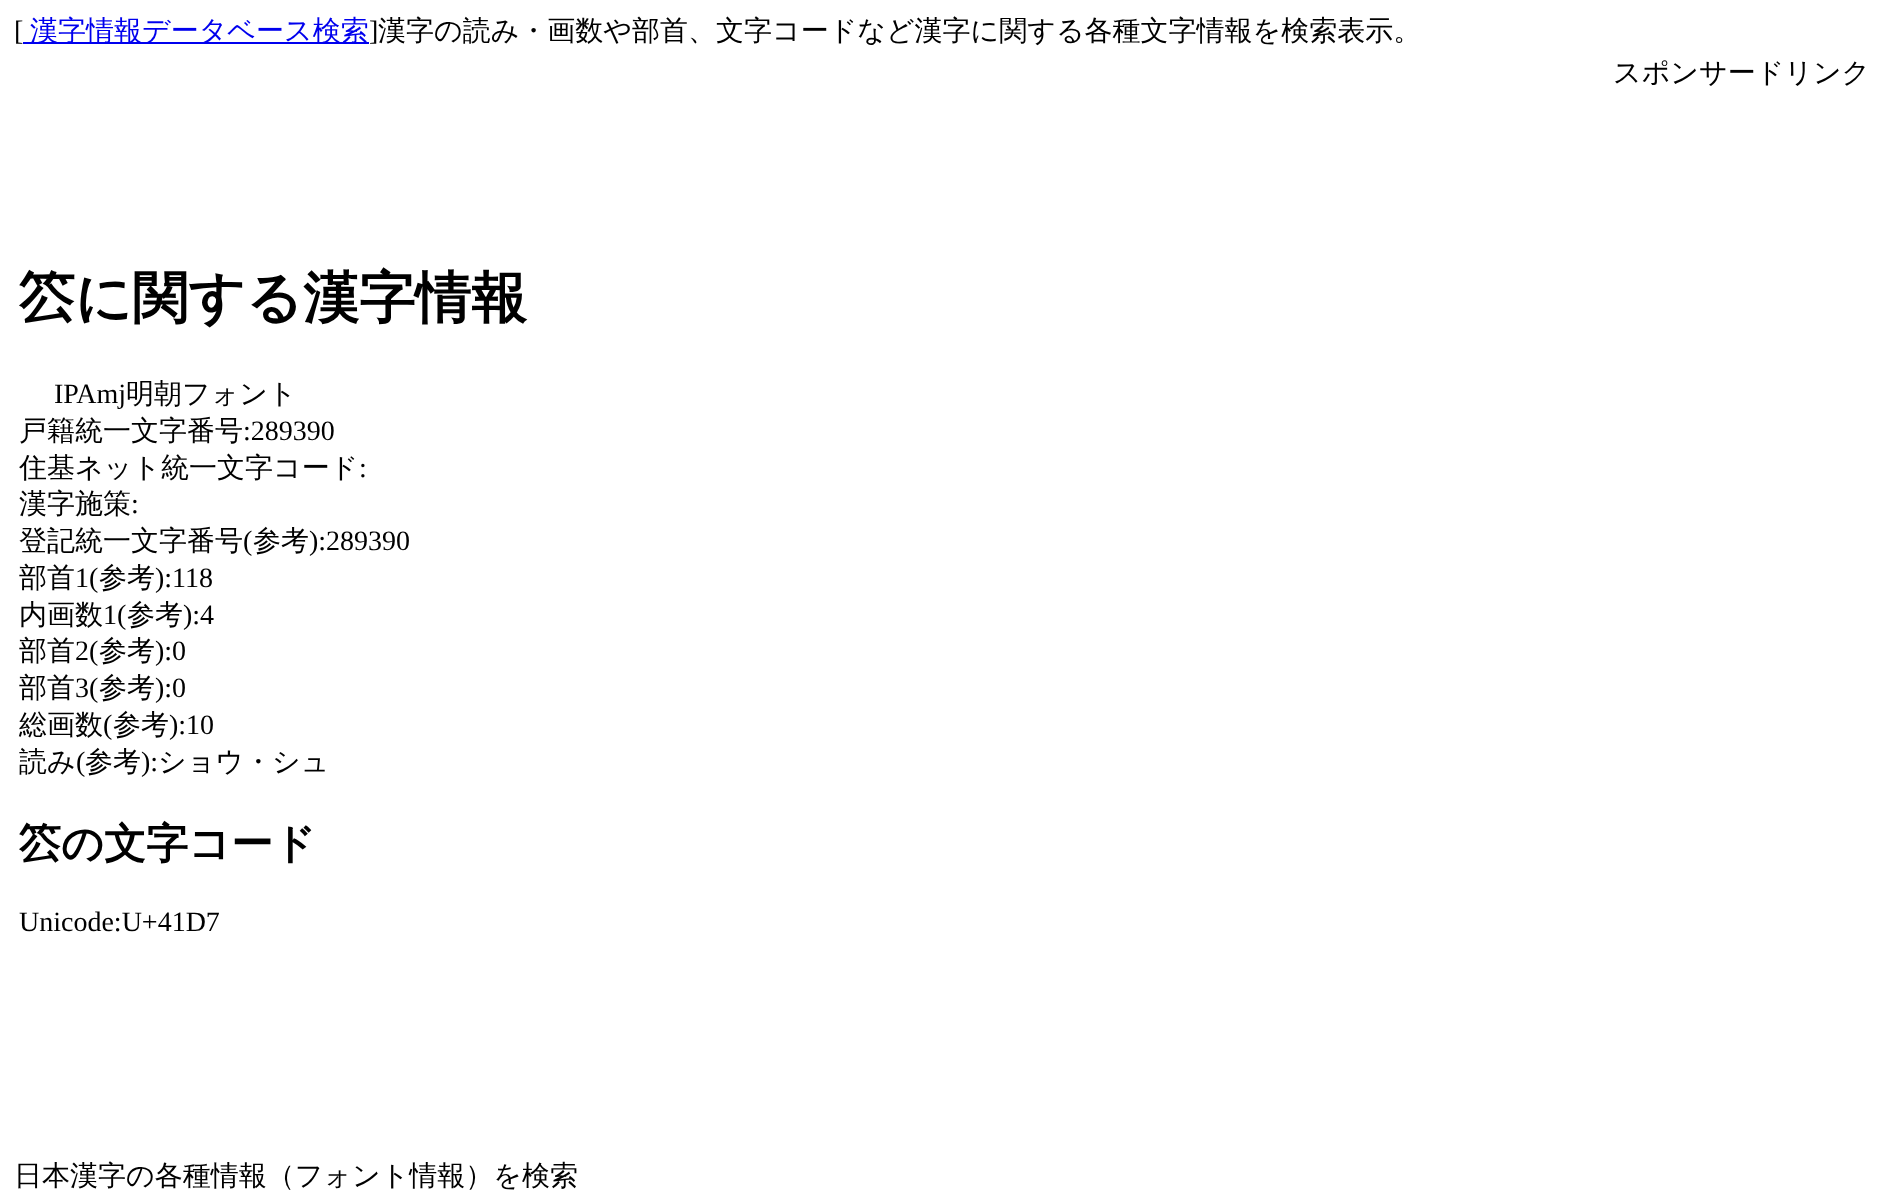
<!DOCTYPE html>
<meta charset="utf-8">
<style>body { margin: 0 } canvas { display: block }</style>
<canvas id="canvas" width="1899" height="1194"></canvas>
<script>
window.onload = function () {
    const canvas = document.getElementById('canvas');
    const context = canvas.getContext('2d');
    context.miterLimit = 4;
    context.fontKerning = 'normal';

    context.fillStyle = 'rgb(255, 255, 255)';
    context.fillRect(0, 0, 1899, 1194);
    context.fillStyle = 'rgb(0, 0, 238)';
    context.fillRect(23, 42, 346, 2);
    context.font = '28px Liberation Serif';
    context.fillStyle = 'rgb(0, 0, 0)';
    context.fillText('[', 14, 40);
    context.font = '500 28px WenQuanYi Zen Hei';
    context.fillStyle = 'rgb(0, 0, 238)';
    context.fillText('漢字情報データベース検索', 30, 40);
    context.font = '28px Liberation Serif';
    context.fillStyle = 'rgb(0, 0, 0)';
    context.fillText(']', 369, 40);
    context.font = '500 28px WenQuanYi Zen Hei';
    context.fillText('漢字の読み・画数や部首、文字コードなど漢字に関する各種文字情報を検索表示。', 378, 40);
    context.fillText('スポンサードリンク', 1613, 82);
    context.font = 'bold 56px WenQuanYi Zen Hei';
    context.fillText('䇗に関する漢字情報', 19, 317);
    context.font = '28px Liberation Serif';
    context.fillText('IPAmj', 54, 403);
    context.font = '500 28px WenQuanYi Zen Hei';
    context.fillText('明朝フォント', 126, 403);
    context.fillText('戸籍統一文字番号', 19, 440);
    context.font = '28px Liberation Serif';
    context.fillText(':289390', 243, 440);
    context.font = '500 28px WenQuanYi Zen Hei';
    context.fillText('住基ネット統一文字コード', 19, 477);
    context.font = '28px Liberation Serif';
    context.fillText(':', 359, 477);
    context.font = '500 28px WenQuanYi Zen Hei';
    context.fillText('漢字施策', 19, 513);
    context.font = '28px Liberation Serif';
    context.fillText(':', 131, 513);
    context.font = '500 28px WenQuanYi Zen Hei';
    context.fillText('登記統一文字番号', 19, 550);
    context.font = '28px Liberation Serif';
    context.fillText('(', 243, 550);
    context.font = '500 28px WenQuanYi Zen Hei';
    context.fillText('参考', 253, 550);
    context.font = '28px Liberation Serif';
    context.fillText('):289390', 309, 550);
    context.font = '500 28px WenQuanYi Zen Hei';
    context.fillText('部首', 19, 587);
    context.font = '28px Liberation Serif';
    context.fillText('1(', 75, 587);
    context.font = '500 28px WenQuanYi Zen Hei';
    context.fillText('参考', 99, 587);
    context.font = '28px Liberation Serif';
    context.fillText('):118', 155, 587);
    context.font = '500 28px WenQuanYi Zen Hei';
    context.fillText('内画数', 19, 624);
    context.font = '28px Liberation Serif';
    context.fillText('1(', 103, 624);
    context.font = '500 28px WenQuanYi Zen Hei';
    context.fillText('参考', 127, 624);
    context.font = '28px Liberation Serif';
    context.fillText('):4', 183, 624);
    context.font = '500 28px WenQuanYi Zen Hei';
    context.fillText('部首', 19, 660);
    context.font = '28px Liberation Serif';
    context.fillText('2(', 75, 660);
    context.font = '500 28px WenQuanYi Zen Hei';
    context.fillText('参考', 99, 660);
    context.font = '28px Liberation Serif';
    context.fillText('):0', 155, 660);
    context.font = '500 28px WenQuanYi Zen Hei';
    context.fillText('部首', 19, 697);
    context.font = '28px Liberation Serif';
    context.fillText('3(', 75, 697);
    context.font = '500 28px WenQuanYi Zen Hei';
    context.fillText('参考', 99, 697);
    context.font = '28px Liberation Serif';
    context.fillText('):0', 155, 697);
    context.font = '500 28px WenQuanYi Zen Hei';
    context.fillText('総画数', 19, 734);
    context.font = '28px Liberation Serif';
    context.fillText('(', 103, 734);
    context.font = '500 28px WenQuanYi Zen Hei';
    context.fillText('参考', 113, 734);
    context.font = '28px Liberation Serif';
    context.fillText('):10', 169, 734);
    context.font = '500 28px WenQuanYi Zen Hei';
    context.fillText('読み', 19, 771);
    context.font = '28px Liberation Serif';
    context.fillText('(', 76, 771);
    context.font = '500 28px WenQuanYi Zen Hei';
    context.fillText('参考', 85, 771);
    context.font = '28px Liberation Serif';
    context.fillText('):', 141, 771);
    context.font = '500 28px WenQuanYi Zen Hei';
    context.fillText('ショウ・シュ', 158, 771);
    context.font = 'bold 42px WenQuanYi Zen Hei';
    context.fillText('䇗の文字コード', 19, 858);
    context.font = '28px Liberation Serif';
    context.fillText('Unicode:U+41D7', 19, 931);
    context.font = '500 28px WenQuanYi Zen Hei';
    context.fillText('日本漢字の各種情報（フォント情報）を検索', 14, 1185);
};
</script>
